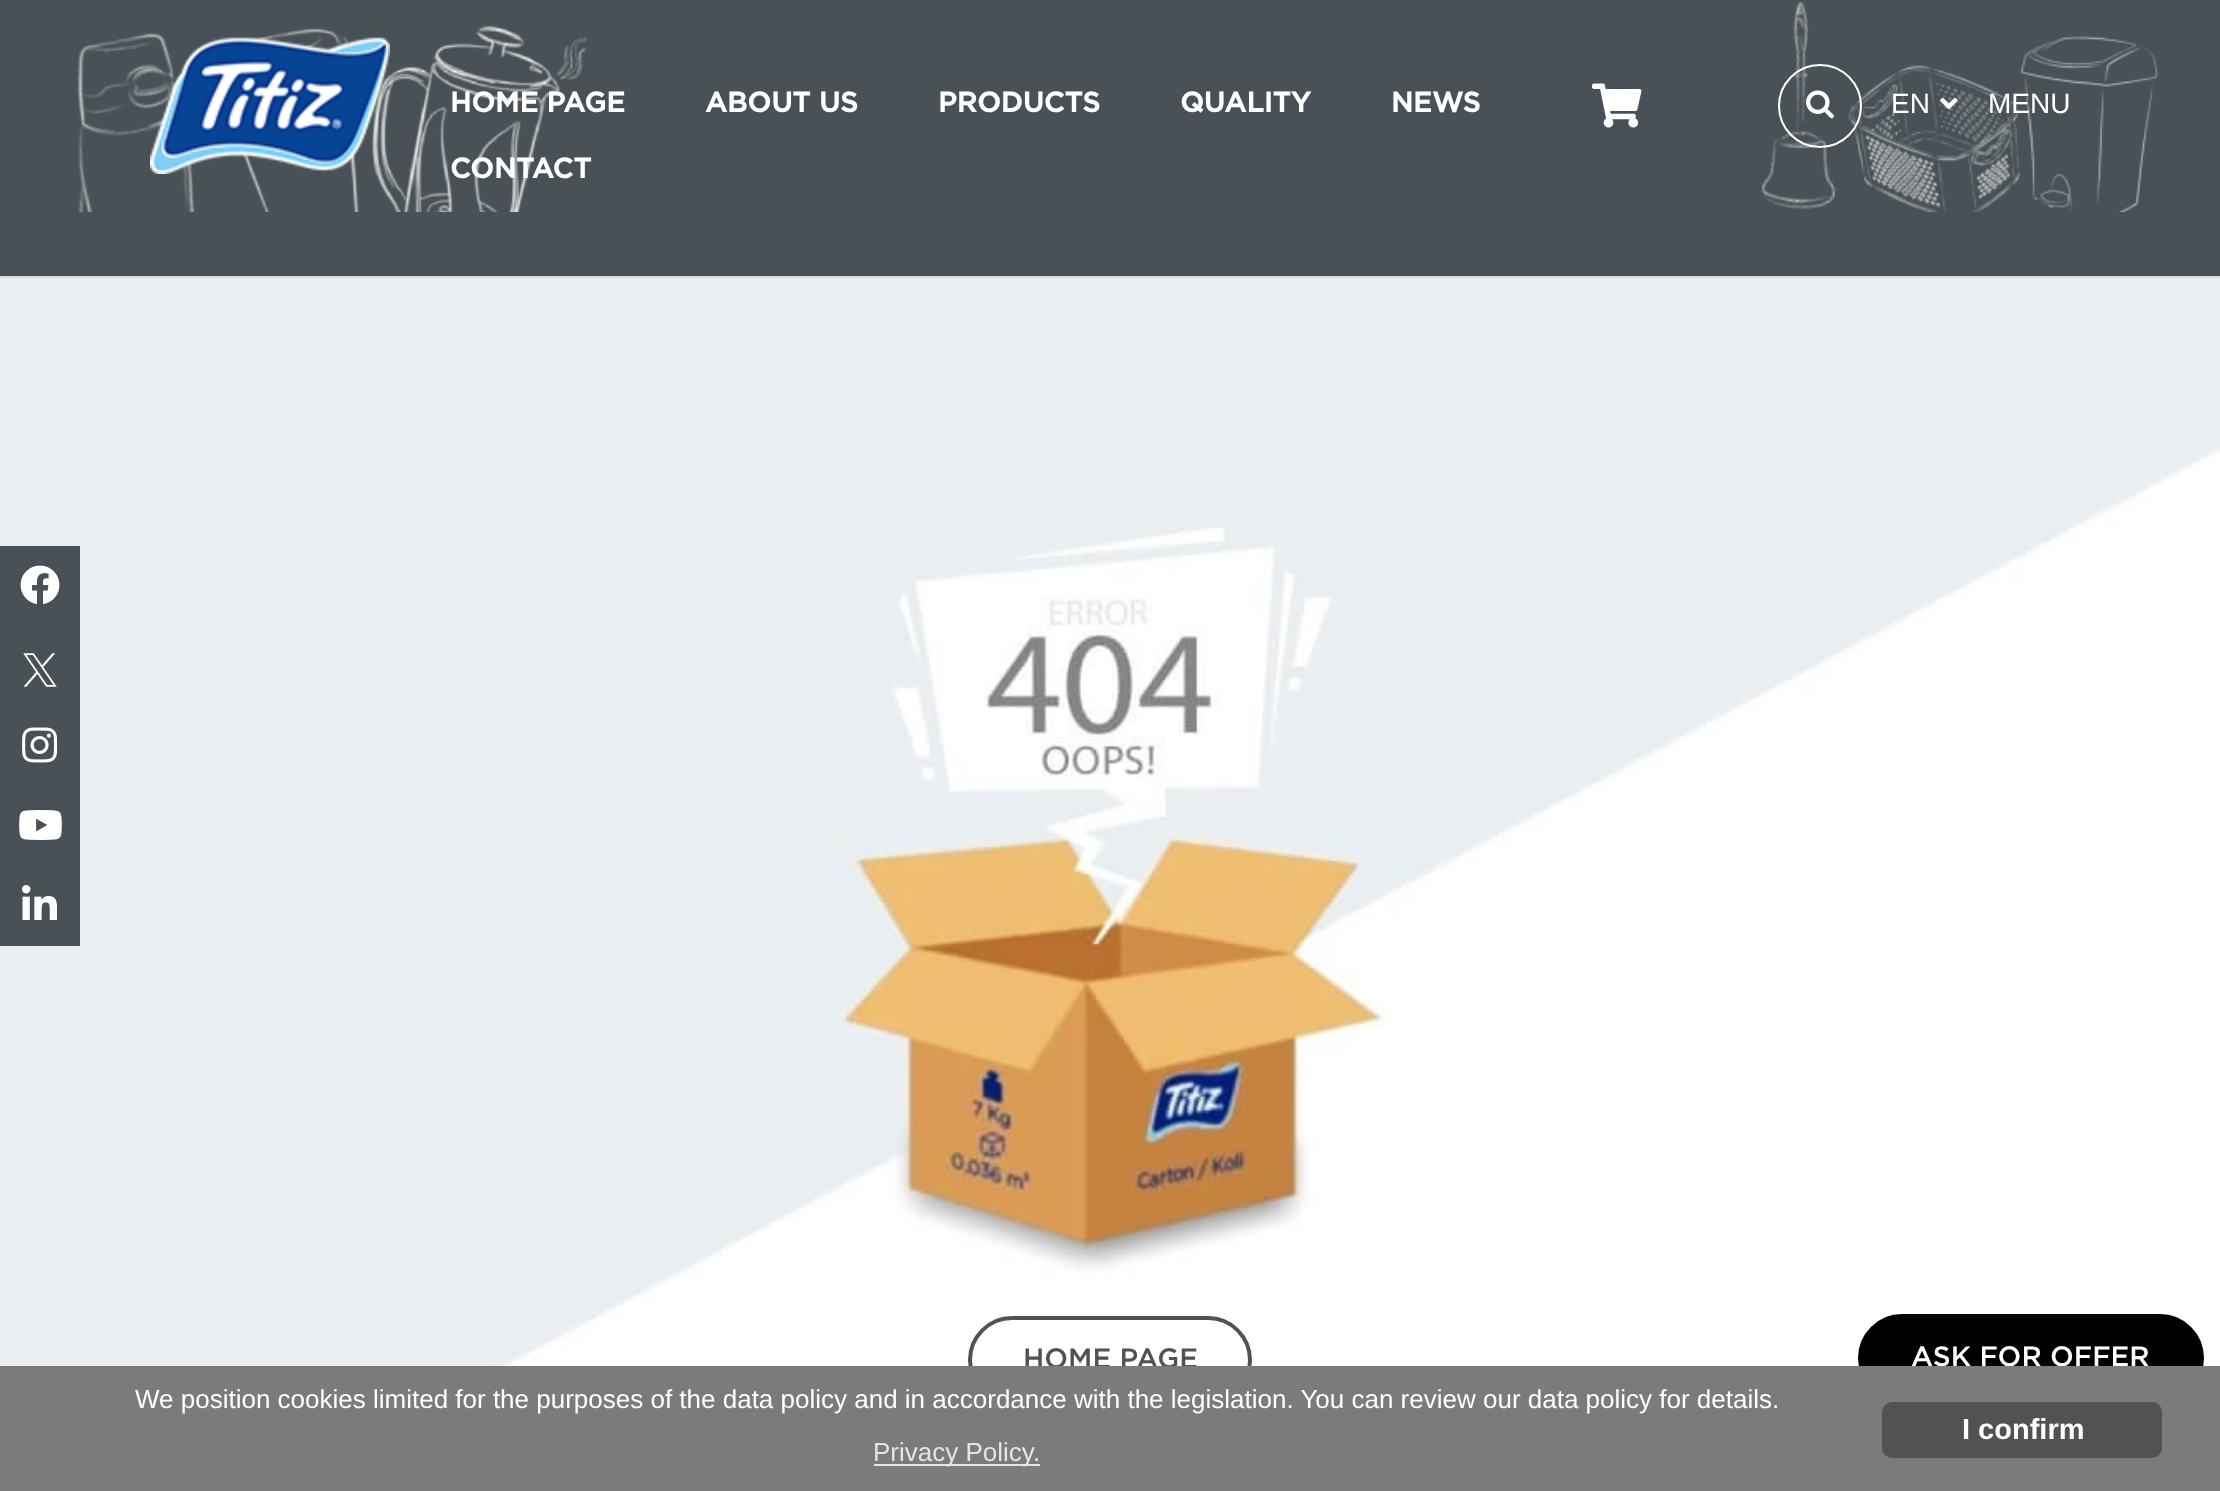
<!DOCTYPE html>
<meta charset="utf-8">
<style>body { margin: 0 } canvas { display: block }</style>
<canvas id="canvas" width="2220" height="1491"></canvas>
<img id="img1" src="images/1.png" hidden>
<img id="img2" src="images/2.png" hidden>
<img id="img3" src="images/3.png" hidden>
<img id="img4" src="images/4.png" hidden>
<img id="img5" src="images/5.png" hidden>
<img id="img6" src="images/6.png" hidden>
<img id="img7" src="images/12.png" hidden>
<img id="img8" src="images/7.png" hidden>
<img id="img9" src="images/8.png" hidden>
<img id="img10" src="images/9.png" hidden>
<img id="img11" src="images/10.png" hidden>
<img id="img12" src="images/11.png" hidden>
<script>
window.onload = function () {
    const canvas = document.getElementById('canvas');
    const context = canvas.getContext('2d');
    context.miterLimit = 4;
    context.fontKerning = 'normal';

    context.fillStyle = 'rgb(255, 255, 255)';
    context.fillRect(0, 0, 2220, 1491);
    context.fillStyle = 'rgb(73, 81, 86)';
    context.fillRect(0, 0, 2220, 276);
    context.fillStyle = 'rgb(220, 220, 220)';
    context.fillRect(0, 276, 2220, 2);
    context.drawImage(document.getElementById('img1'), 76, 25, 511, 187);
    context.drawImage(document.getElementById('img2'), 1761, 1, 398, 211);
    context.drawImage(document.getElementById('img3'), 150, 37, 240, 137);
    context.drawImage(document.getElementById('img4'), 1592, 83, 50, 45);
    context.beginPath();
    context.arc(1820, 106, 41, 0, 2 * Math.PI);
    context.strokeStyle = 'rgb(255, 255, 255)';
    context.lineWidth = 2;
    context.stroke();
    context.drawImage(document.getElementById('img5'), 1806, 90, 28, 29);
    context.drawImage(document.getElementById('img6'), 1940, 97, 18, 13);
    context.drawImage(document.getElementById('img7'), 0, 278, 2220, 1088);
    context.fillStyle = 'rgb(73, 81, 86)';
    context.fillRect(0, 546, 80, 400);
    context.drawImage(document.getElementById('img8'), 20, 565, 40, 40);
    context.drawImage(document.getElementById('img9'), 23, 653, 34, 34);
    context.drawImage(document.getElementById('img10'), 22, 727, 36, 36);
    context.drawImage(document.getElementById('img11'), 19, 810, 43, 30);
    context.drawImage(document.getElementById('img12'), 22, 885, 35, 35);
    context.beginPath();
    context.roundRect(970, 1318, 280, 84, 42);
    context.strokeStyle = 'rgb(82, 82, 82)';
    context.lineWidth = 4;
    context.stroke();
    context.fillStyle = 'rgb(0, 0, 0)';
    context.beginPath();
    context.roundRect(1860, 1316, 342, 84, 42);
    context.fill();
    context.strokeStyle = 'rgb(0, 0, 0)';
    context.stroke();
    context.font = 'bold 28px Gotham';
    context.fillStyle = 'rgb(255, 255, 255)';
    context.fillText('HOME PAGE', 450, 112);
    context.fillText('ABOUT US', 705, 112);
    context.fillText('PRODUCTS', 938, 112);
    context.fillText('QUALITY', 1180, 112);
    context.fillText('NEWS', 1391, 112);
    context.fillText('CONTACT', 450, 178);
    context.font = '28px Liberation Sans';
    context.fillText('EN', 1891, 113);
    context.fillText('MENU', 1988, 113);
    context.font = '500 28px Gotham';
    context.fillStyle = 'rgb(82, 82, 82)';
    context.fillText('HOME PAGE', 1023, 1368);
    context.fillStyle = 'rgb(255, 255, 255)';
    context.fillText('ASK FOR OFFER', 1911, 1366);
    context.fillStyle = 'rgb(123, 123, 123)';
    context.fillRect(0, 1366, 2220, 125);
    context.font = '26px Liberation Sans';
    context.fillStyle = 'rgb(255, 255, 255)';
    context.fillText('We position cookies limited for the purposes of the data policy and in accordance with the legislation. You can review our data policy for details.', 135, 1408);
    context.fillStyle = 'rgb(229, 229, 229)';
    context.fillRect(874, 1464, 166, 2);
    context.fillText('Privacy Policy.', 873, 1461);
    context.fillStyle = 'rgb(82, 82, 82)';
    context.beginPath();
    context.roundRect(1882, 1402, 280, 56, 10);
    context.fill();
    context.font = 'bold 29px Liberation Sans';
    context.fillStyle = 'rgb(255, 255, 255)';
    context.fillText('I confirm', 1962, 1439);
};
</script>
